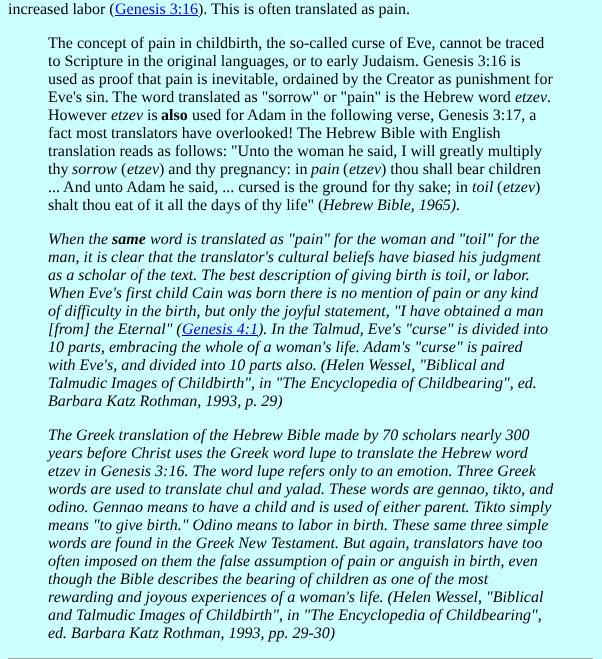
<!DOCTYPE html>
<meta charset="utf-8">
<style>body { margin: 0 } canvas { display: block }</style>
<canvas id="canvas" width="602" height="659"></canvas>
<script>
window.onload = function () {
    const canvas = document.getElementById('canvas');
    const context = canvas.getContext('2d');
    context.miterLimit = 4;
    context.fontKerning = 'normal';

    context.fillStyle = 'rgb(204, 255, 255)';
    context.fillRect(0, 0, 602, 659);
    context.fillStyle = 'rgb(0, 0, 238)';
    context.fillRect(115, 15, 83, 1);
    context.fillStyle = 'rgb(159, 159, 159)';
    context.fillRect(8, 658, 586, 1);
    context.fillStyle = 'rgb(238, 238, 238)';
    context.fillRect(593, 658, 1, 1);
    context.font = '16px Liberation Serif';
    context.fillStyle = 'rgb(0, 0, 0)';
    context.fillText('increased labor (', 8, 14);
    context.fillStyle = 'rgb(0, 0, 238)';
    context.fillText('Genesis 3:16', 115, 14);
    context.fillStyle = 'rgb(0, 0, 0)';
    context.fillText('). This is often translated as pain.', 198, 14);
    context.fillText('The concept of pain in childbirth, the so-called curse of Eve, cannot be traced', 48, 48);
    context.fillText('to Scripture in the original languages, or to early Judaism. Genesis 3:16 is', 48, 66);
    context.fillText('used as proof that pain is inevitable, ordained by the Creator as punishment for', 48, 84);
    context.fillText('Eve\'s sin. The word translated as "sorrow" or "pain" is the Hebrew word', 48, 102);
    context.font = 'italic 16px Liberation Serif';
    context.fillText('etzev', 515, 102);
    context.font = '16px Liberation Serif';
    context.fillText('.', 547, 102);
    context.fillText('However', 48, 120);
    context.font = 'italic 16px Liberation Serif';
    context.fillText('etzev', 111, 120);
    context.font = '16px Liberation Serif';
    context.fillText('is', 147, 120);
    context.font = 'bold 16px Liberation Serif';
    context.fillText('also', 161, 120);
    context.font = '16px Liberation Serif';
    context.fillText('used for Adam in the following verse, Genesis 3:17, a', 192, 120);
    context.fillText('fact most translators have overlooked! The Hebrew Bible with English', 48, 138);
    context.fillText('translation reads as follows: "Unto the woman he said, I will greatly multiply', 48, 156);
    context.fillText('thy', 48, 174);
    context.font = 'italic 16px Liberation Serif';
    context.fillText('sorrow', 72, 174);
    context.font = '16px Liberation Serif';
    context.fillText('(', 121, 174);
    context.font = 'italic 16px Liberation Serif';
    context.fillText('etzev', 127, 174);
    context.font = '16px Liberation Serif';
    context.fillText(') and thy pregnancy: in', 159, 174);
    context.font = 'italic 16px Liberation Serif';
    context.fillText('pain', 311, 174);
    context.font = '16px Liberation Serif';
    context.fillText('(', 343, 174);
    context.font = 'italic 16px Liberation Serif';
    context.fillText('etzev', 349, 174);
    context.font = '16px Liberation Serif';
    context.fillText(') thou shall bear children', 381, 174);
    context.fillText('... And unto Adam he said, ... cursed is the ground for thy sake; in', 48, 192);
    context.font = 'italic 16px Liberation Serif';
    context.fillText('toil', 472, 192);
    context.font = '16px Liberation Serif';
    context.fillText('(', 497, 192);
    context.font = 'italic 16px Liberation Serif';
    context.fillText('etzev', 503, 192);
    context.font = '16px Liberation Serif';
    context.fillText(')', 535, 192);
    context.font = 'italic 16px Liberation Serif';
    context.fillText('Hebrew Bible, 1965).', 323, 210);
    context.fillText('When the', 48, 244);
    context.font = 'italic bold 16px Liberation Serif';
    context.fillText('same', 112, 244);
    context.font = 'italic 16px Liberation Serif';
    context.fillText('word is translated as "pain" for the woman and "toil" for the', 150, 244);
    context.fillText('man, it is clear that the translator\'s cultural beliefs have biased his judgment', 48, 262);
    context.fillText('as a scholar of the text. The best description of giving birth is toil, or labor.', 48, 280);
    context.fillText('When Eve\'s first child Cain was born there is no mention of pain or any kind', 48, 298);
    context.fillText('of difficulty in the birth, but only the joyful statement, "I have obtained a man', 48, 316);
    context.fillText('[from] the Eternal" (', 48, 334);
    context.fillStyle = 'rgb(0, 0, 238)';
    context.fillText('Genesis 4:1', 182, 334);
    context.fillRect(182, 335, 76, 1);
    context.fillStyle = 'rgb(0, 0, 0)';
    context.fillText('). In the Talmud, Eve\'s "curse" is divided into', 258, 334);
    context.fillText('10 parts, embracing the whole of a woman\'s life. Adam\'s "curse" is paired', 48, 352);
    context.fillText('with Eve\'s, and divided into 10 parts also. (Helen Wessel, "Biblical and', 48, 370);
    context.fillText('Talmudic Images of Childbirth", in "The Encyclopedia of Childbearing", ed.', 48, 388);
    context.fillText('Barbara Katz Rothman, 1993, p. 29)', 48, 406);
    context.fillText('The Greek translation of the Hebrew Bible made by 70 scholars nearly 300', 48, 440);
    context.fillText('years before Christ uses the Greek word lupe to translate the Hebrew word', 48, 458);
    context.fillText('etzev in Genesis 3:16. The word lupe refers only to an emotion. Three Greek', 48, 476);
    context.fillText('words are used to translate chul and yalad. These words are gennao, tikto, and', 48, 494);
    context.fillText('odino. Gennao means to have a child and is used of either parent. Tikto simply', 48, 512);
    context.fillText('means "to give birth." Odino means to labor in birth. These same three simple', 48, 530);
    context.fillText('words are found in the Greek New Testament. But again, translators have too', 48, 548);
    context.fillText('often imposed on them the false assumption of pain or anguish in birth, even', 48, 566);
    context.fillText('though the Bible describes the bearing of children as one of the most', 48, 584);
    context.fillText('rewarding and joyous experiences of a woman\'s life. (Helen Wessel, "Biblical', 48, 602);
    context.fillText('and Talmudic Images of Childbirth", in "The Encyclopedia of Childbearing",', 48, 620);
    context.fillText('ed. Barbara Katz Rothman, 1993, pp. 29-30)', 48, 638);
    context.font = '16px Liberation Serif';
    context.fillText('shalt thou eat of it all the days of thy life" (', 48, 210);
};
</script>
